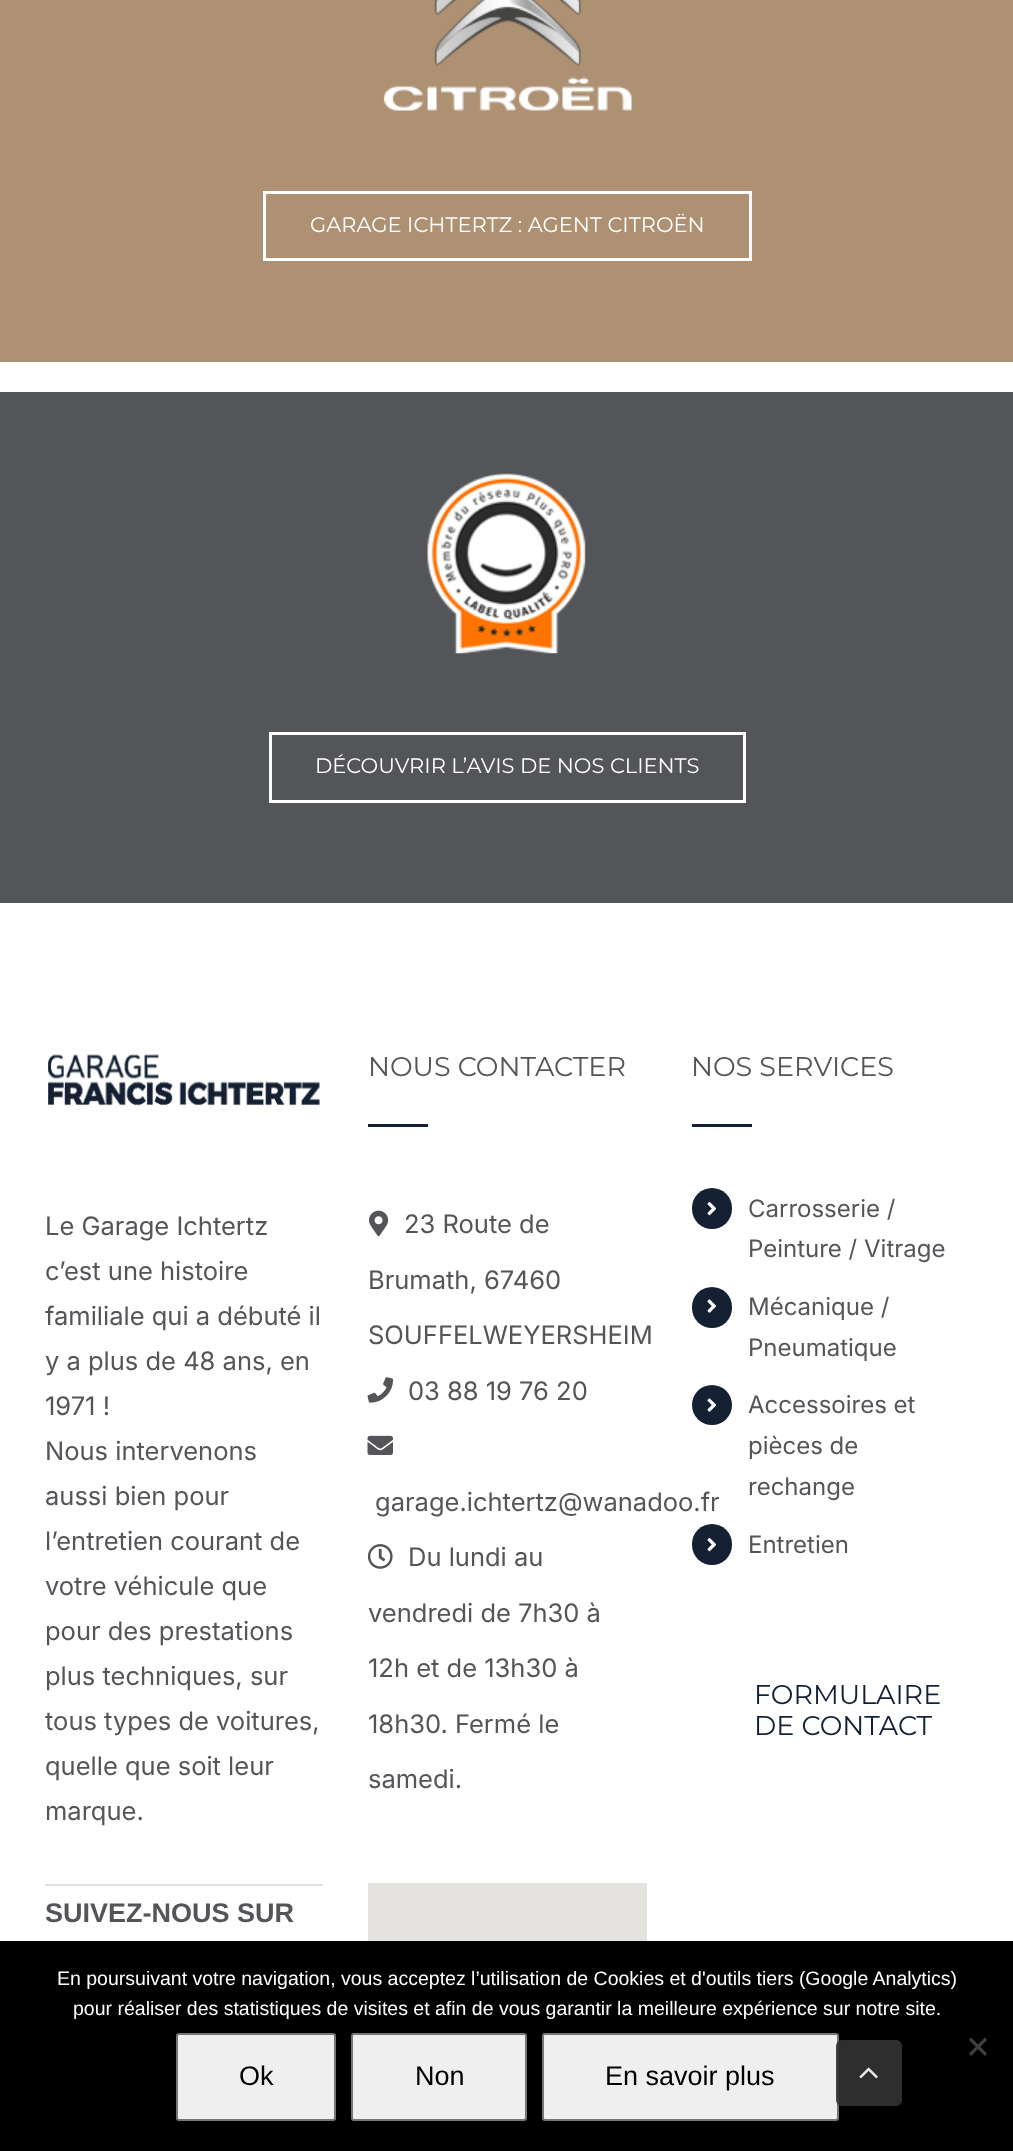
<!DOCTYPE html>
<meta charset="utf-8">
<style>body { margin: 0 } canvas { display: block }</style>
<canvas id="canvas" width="1013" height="2151"></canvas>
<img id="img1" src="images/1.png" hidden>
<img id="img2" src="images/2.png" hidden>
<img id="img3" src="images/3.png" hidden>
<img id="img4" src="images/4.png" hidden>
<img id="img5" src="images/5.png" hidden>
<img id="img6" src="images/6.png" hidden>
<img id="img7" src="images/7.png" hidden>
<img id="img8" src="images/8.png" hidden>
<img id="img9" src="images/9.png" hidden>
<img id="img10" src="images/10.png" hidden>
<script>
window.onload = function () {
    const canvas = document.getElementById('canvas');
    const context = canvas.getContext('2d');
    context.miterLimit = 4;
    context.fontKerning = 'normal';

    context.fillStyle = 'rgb(255, 255, 255)';
    context.fillRect(0, 0, 1013, 2151);
    context.fillStyle = 'rgb(174, 144, 114)';
    context.fillRect(0, 0, 1013, 362);
    context.drawImage(document.getElementById('img1'), 383, 0, 249, 111);
    context.strokeStyle = 'rgb(255, 255, 255)';
    context.lineWidth = 3;
    context.strokeRect(264.5, 192.5, 486, 67);
    context.fillStyle = 'rgb(84, 85, 89)';
    context.fillRect(0, 392, 1013, 511);
    context.drawImage(document.getElementById('img2'), 427, 473, 159, 181);
    context.strokeRect(270.5, 733.5, 474, 68);
    context.drawImage(document.getElementById('img3'), 48, 1054, 272, 52);
    context.fillStyle = 'rgb(224, 222, 222)';
    context.fillRect(45, 1884, 278, 2);
    context.fillStyle = 'rgb(21, 33, 51)';
    context.fillRect(368, 1124, 60, 3);
    context.drawImage(document.getElementById('img4'), 369, 1210, 20, 27);
    context.drawImage(document.getElementById('img5'), 367, 1377, 26, 26);
    context.drawImage(document.getElementById('img6'), 367, 1435, 26, 20);
    context.drawImage(document.getElementById('img7'), 367, 1544, 26, 25);
    context.fillStyle = 'rgb(229, 227, 223)';
    context.fillRect(368, 1883, 279, 58);
    context.fillStyle = 'rgb(21, 33, 51)';
    context.fillRect(692, 1124, 60, 3);
    context.beginPath();
    context.roundRect(692, 1188, 40, 41, 20);
    context.fill();
    context.drawImage(document.getElementById('img8'), 707, 1202, 9, 14);
    context.beginPath();
    context.roundRect(692, 1287, 40, 41, 20);
    context.fill();
    context.drawImage(document.getElementById('img9'), 707, 1299, 9, 14);
    context.beginPath();
    context.arc(712, 1405, 20, 0, 2 * Math.PI);
    context.fill();
    context.drawImage(document.getElementById('img9'), 707, 1398, 9, 14);
    context.beginPath();
    context.roundRect(692, 1524, 40, 41, 20);
    context.fill();
    context.drawImage(document.getElementById('img8'), 707, 1538, 9, 14);
    context.fillStyle = 'rgb(0, 0, 0)';
    context.fillRect(0, 1941, 1013, 210);
    context.fillStyle = 'rgb(64, 64, 64)';
    context.beginPath();
    context.moveTo(985, 2037.5);
    context.lineTo(987, 2040);
    context.lineTo(971, 2056);
    context.lineTo(969, 2053.5);
    context.closePath();
    context.fill();
    context.beginPath();
    context.moveTo(969, 2040);
    context.lineTo(971, 2037.5);
    context.lineTo(987, 2053.5);
    context.lineTo(985, 2056);
    context.closePath();
    context.fill();
    context.fillStyle = 'rgb(239, 239, 239)';
    context.beginPath();
    context.roundRect(177, 2034, 158, 86, 2);
    context.fill();
    context.strokeStyle = 'rgb(118, 118, 118)';
    context.lineWidth = 2;
    context.stroke();
    context.beginPath();
    context.roundRect(352, 2034, 174, 86, 2);
    context.fill();
    context.stroke();
    context.beginPath();
    context.roundRect(543, 2034, 295, 86, 2);
    context.fill();
    context.stroke();
    context.fillStyle = 'rgba(51, 51, 51, 0.9)';
    context.beginPath();
    context.roundRect(836, 2040, 66, 66, 6);
    context.fill();
    context.drawImage(document.getElementById('img10'), 859, 2067, 19, 12);
    context.font = '100 21px Montserrat';
    context.fillStyle = 'rgb(255, 255, 255)';
    context.fillText('GARAGE ICHTERTZ : AGENT CITROËN', 310, 232);
    context.fillText('DÉCOUVRIR L’AVIS DE NOS CLIENTS', 315, 773);
    context.font = '25.5px Inter';
    context.fillStyle = 'rgb(84, 85, 89)';
    context.fillText('Le Garage Ichtertz', 45, 1235);
    context.fillText('c’est une histoire', 45, 1280);
    context.fillText('familiale qui a débuté il', 45, 1325);
    context.fillText('y a plus de 48 ans, en', 45, 1370);
    context.fillText('1971 !', 45, 1415);
    context.fillText('Nous intervenons', 45, 1460);
    context.fillText('aussi bien pour', 45, 1505);
    context.fillText('l’entretien courant de', 45, 1550);
    context.fillText('votre véhicule que', 45, 1595);
    context.fillText('pour des prestations', 45, 1640);
    context.fillText('plus techniques, sur', 45, 1685);
    context.fillText('tous types de voitures,', 45, 1730);
    context.fillText('quelle que soit leur', 45, 1775);
    context.fillText('marque.', 45, 1820);
    context.font = 'bold 27px Liberation Sans';
    context.fillText('SUIVEZ-NOUS SUR', 45, 1922);
    context.font = '100 27px Montserrat';
    context.fillText('NOUS CONTACTER', 368, 1076);
    context.font = '25.5px Inter';
    context.fillText('23 Route de', 404, 1233);
    context.fillText('Brumath, 67460', 368, 1289);
    context.fillText('SOUFFELWEYERSHEIM', 368, 1344);
    context.fillText('03 88 19 76 20', 408, 1400);
    context.fillText('garage.ichtertz@wanadoo.fr', 375, 1511);
    context.fillText('Du lundi au', 408, 1566);
    context.fillText('vendredi de 7h30 à', 368, 1622);
    context.fillText('12h et de 13h30 à', 368, 1677);
    context.fillText('18h30. Fermé le', 368, 1733);
    context.fillText('samedi.', 368, 1788);
    context.font = '100 27px Montserrat';
    context.fillText('NOS SERVICES', 691, 1076);
    context.font = '24px Inter';
    context.fillText('Carrosserie /', 748, 1217);
    context.fillText('Peinture / Vitrage', 748, 1257);
    context.fillText('Mécanique /', 748, 1315);
    context.fillText('Pneumatique', 748, 1356);
    context.fillText('Accessoires et', 748, 1413);
    context.fillText('pièces de', 748, 1454);
    context.fillText('rechange', 748, 1495);
    context.fillText('Entretien', 748, 1553);
    context.font = '100 27px Montserrat';
    context.fillStyle = 'rgb(21, 33, 51)';
    context.fillText('FORMULAIRE', 754, 1704);
    context.fillText('DE CONTACT', 754, 1735);
    context.font = '19.5px Liberation Sans';
    context.fillStyle = 'rgb(255, 255, 255)';
    context.fillText('En poursuivant votre navigation, vous acceptez l’utilisation de Cookies et d\'outils tiers (Google Analytics)', 57, 1985);
    context.fillText('pour réaliser des statistiques de visites et afin de vous garantir la meilleure expérience sur notre site.', 73, 2015);
    context.font = '27px Liberation Sans';
    context.fillStyle = 'rgb(0, 0, 0)';
    context.fillText('Ok', 239, 2085);
    context.fillText('Non', 415, 2085);
    context.fillText('En savoir plus', 605, 2085);
};
</script>
